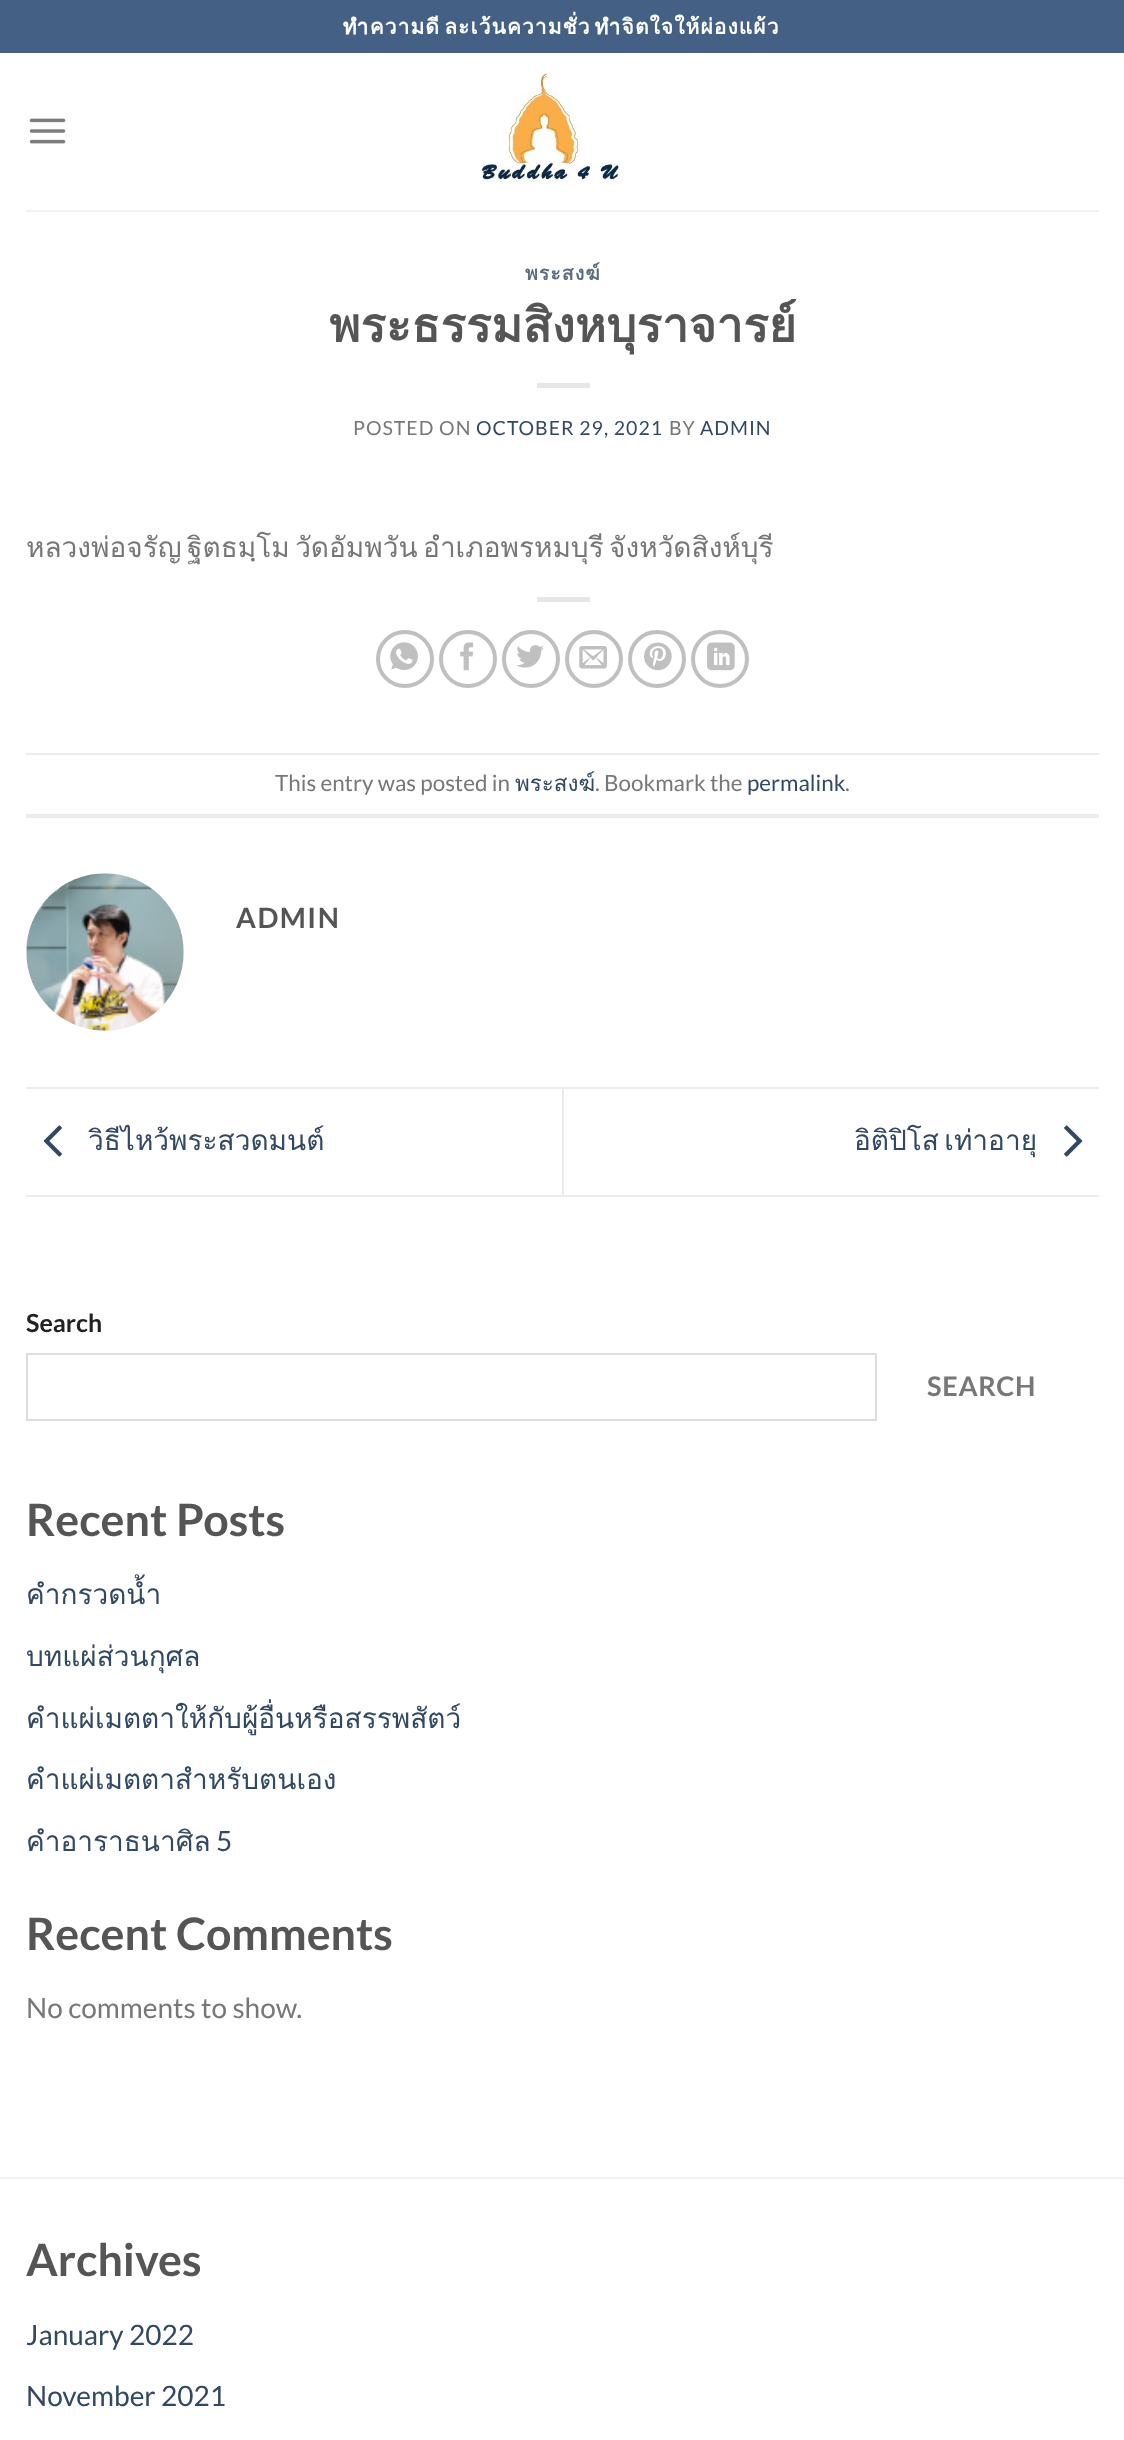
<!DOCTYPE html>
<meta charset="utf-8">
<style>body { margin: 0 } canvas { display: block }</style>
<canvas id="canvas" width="1124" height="2440"></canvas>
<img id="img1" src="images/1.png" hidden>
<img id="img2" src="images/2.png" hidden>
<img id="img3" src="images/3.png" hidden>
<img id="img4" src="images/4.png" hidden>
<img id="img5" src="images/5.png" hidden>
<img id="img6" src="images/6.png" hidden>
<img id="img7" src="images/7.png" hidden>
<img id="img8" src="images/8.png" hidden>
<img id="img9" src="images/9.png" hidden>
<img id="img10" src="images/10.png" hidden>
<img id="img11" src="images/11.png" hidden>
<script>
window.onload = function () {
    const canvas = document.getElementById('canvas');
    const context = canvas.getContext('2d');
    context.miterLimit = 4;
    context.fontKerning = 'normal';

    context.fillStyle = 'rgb(255, 255, 255)';
    context.fillRect(0, 0, 1124, 2440);
    context.fillStyle = 'rgb(68, 96, 132)';
    context.fillRect(0, 0, 1124, 53);
    context.drawImage(document.getElementById('img1'), 29, 118, 37, 26);
    context.drawImage(document.getElementById('img2'), 481, 72, 139, 110);
    context.fillStyle = 'rgb(241, 241, 241)';
    context.fillRect(26, 210, 1073, 2);
    context.fillStyle = 'rgb(230, 230, 230)';
    context.fillRect(537, 383, 53, 5);
    context.fillRect(537, 597, 53, 5);
    context.beginPath();
    context.arc(405, 659, 27, 0, 2 * Math.PI);
    context.strokeStyle = 'rgb(192, 192, 192)';
    context.lineWidth = 4;
    context.stroke();
    context.drawImage(document.getElementById('img3'), 390, 642, 28, 28);
    context.beginPath();
    context.arc(468, 659, 27, 0, 2 * Math.PI);
    context.stroke();
    context.drawImage(document.getElementById('img4'), 460, 642, 14, 29);
    context.beginPath();
    context.arc(531, 659, 27, 0, 2 * Math.PI);
    context.stroke();
    context.drawImage(document.getElementById('img5'), 516, 645, 28, 23);
    context.beginPath();
    context.arc(594, 659, 27, 0, 2 * Math.PI);
    context.stroke();
    context.drawImage(document.getElementById('img6'), 579, 646, 28, 23);
    context.beginPath();
    context.arc(657, 659, 27, 0, 2 * Math.PI);
    context.stroke();
    context.drawImage(document.getElementById('img7'), 644, 642, 28, 29);
    context.beginPath();
    context.arc(720, 659, 27, 0, 2 * Math.PI);
    context.stroke();
    context.drawImage(document.getElementById('img8'), 707, 642, 28, 29);
    context.fillStyle = 'rgb(236, 236, 236)';
    context.fillRect(26, 753, 1073, 2);
    context.fillRect(26, 814, 1073, 4);
    context.drawImage(document.getElementById('img9'), 26, 873, 158, 158);
    context.fillRect(26, 1087, 1073, 2);
    context.fillRect(26, 1195, 1073, 2);
    context.drawImage(document.getElementById('img10'), 43, 1125, 19, 32);
    context.fillRect(562, 1089, 2, 106);
    context.drawImage(document.getElementById('img11'), 1064, 1125, 19, 32);
    context.strokeStyle = 'rgb(221, 221, 221)';
    context.lineWidth = 2;
    context.strokeRect(27, 1354, 849, 66);
    context.fillStyle = 'rgb(242, 242, 242)';
    context.fillRect(0, 2177, 1124, 2);
    context.letterSpacing = '1.05px';
    context.wordSpacing = '-4px';
    context.font = 'bold 21px Loma';
    context.fillStyle = 'rgb(255, 255, 255)';
    context.fillText('ทำความดี ละเว้นความชั่ว ทำจิตใจให้ผ่องแผ้ว', 343, 34);
    context.letterSpacing = '1px';
    context.wordSpacing = '0px';
    context.font = 'bold 19.5px Loma';
    context.fillStyle = 'rgb(92, 109, 129)';
    context.fillText('พระสงฆ์', 525, 280);
    context.letterSpacing = '0px';
    context.font = 'bold 47.5px Loma';
    context.fillStyle = 'rgb(85, 85, 85)';
    context.fillText('พระธรรมสิงหบุราจารย์', 329, 342);
    context.letterSpacing = '1px';
    context.font = '19.5px Lato';
    context.fillStyle = 'rgb(119, 119, 119)';
    context.fillText('POSTED ON', 353, 435);
    context.fillStyle = 'rgb(51, 72, 98)';
    context.fillText('OCTOBER 29, 2021', 476, 435);
    context.fillStyle = 'rgb(119, 119, 119)';
    context.fillText('BY', 669, 435);
    context.fillStyle = 'rgb(51, 72, 98)';
    context.fillText('ADMIN', 700, 435);
    context.letterSpacing = '0px';
    context.wordSpacing = '-4px';
    context.font = '28px Loma';
    context.fillStyle = 'rgb(119, 119, 119)';
    context.fillText('หลวงพ่อจรัญ ฐิตธมฺโม วัดอัมพวัน อำเภอพรหมบุรี จังหวัดสิงห์บุรี', 26, 557);
    context.wordSpacing = '0px';
    context.font = '22.4px Lato';
    context.fillText('This entry was posted in', 275, 791);
    context.font = '22.4px Loma';
    context.fillStyle = 'rgb(51, 72, 98)';
    context.fillText('พระสงฆ์', 515, 791);
    context.font = '22.4px Lato';
    context.fillStyle = 'rgb(119, 119, 119)';
    context.fillText('. Bookmark the', 595, 791);
    context.fillStyle = 'rgb(51, 72, 98)';
    context.fillText('permalink', 747, 791);
    context.fillStyle = 'rgb(119, 119, 119)';
    context.fillText('.', 845, 791);
    context.letterSpacing = '1.5px';
    context.font = 'bold 28px Lato';
    context.fillStyle = 'rgb(85, 85, 85)';
    context.fillText('ADMIN', 236, 928);
    context.letterSpacing = '0px';
    context.font = '28px Loma';
    context.fillStyle = 'rgb(51, 72, 98)';
    context.fillText('วิธีไหว้พระสวดมนต์', 88, 1150);
    context.wordSpacing = '-4px';
    context.fillText('อิติปิโส เท่าอายุ', 854, 1150);
    context.wordSpacing = '0px';
    context.font = 'bold 25px Lato';
    context.fillStyle = 'rgb(34, 34, 34)';
    context.fillText('Search', 26, 1332);
    context.letterSpacing = '0.75px';
    context.font = 'bold 27px Lato';
    context.fillStyle = 'rgb(119, 119, 119)';
    context.fillText('SEARCH', 927, 1396);
    context.letterSpacing = '0px';
    context.font = 'bold 44.75px Lato';
    context.fillStyle = 'rgb(85, 85, 85)';
    context.fillText('Recent Posts', 26, 1536);
    context.font = '28px Loma';
    context.fillStyle = 'rgb(51, 72, 98)';
    context.fillText('คำกรวดน้ำ', 26, 1604);
    context.fillText('บทแผ่ส่วนกุศล', 26, 1666);
    context.fillText('คำแผ่เมตตาให้กับผู้อื่นหรือสรรพสัตว์', 26, 1728);
    context.fillText('คำแผ่เมตตาสำหรับตนเอง', 26, 1789);
    context.fillText('คำอาราธนาศิล', 26, 1851);
    context.font = '28px Lato';
    context.fillText('5', 216, 1851);
    context.font = 'bold 44.75px Lato';
    context.fillStyle = 'rgb(85, 85, 85)';
    context.fillText('Recent Comments', 26, 1950);
    context.font = '28px Lato';
    context.fillStyle = 'rgb(119, 119, 119)';
    context.fillText('No comments to show.', 26, 2018);
    context.font = 'bold 44.75px Lato';
    context.fillStyle = 'rgb(85, 85, 85)';
    context.fillText('Archives', 26, 2276);
    context.font = '28px Lato';
    context.fillStyle = 'rgb(51, 72, 98)';
    context.fillText('January 2022', 26, 2345);
    context.fillText('November 2021', 26, 2406);
};
</script>
